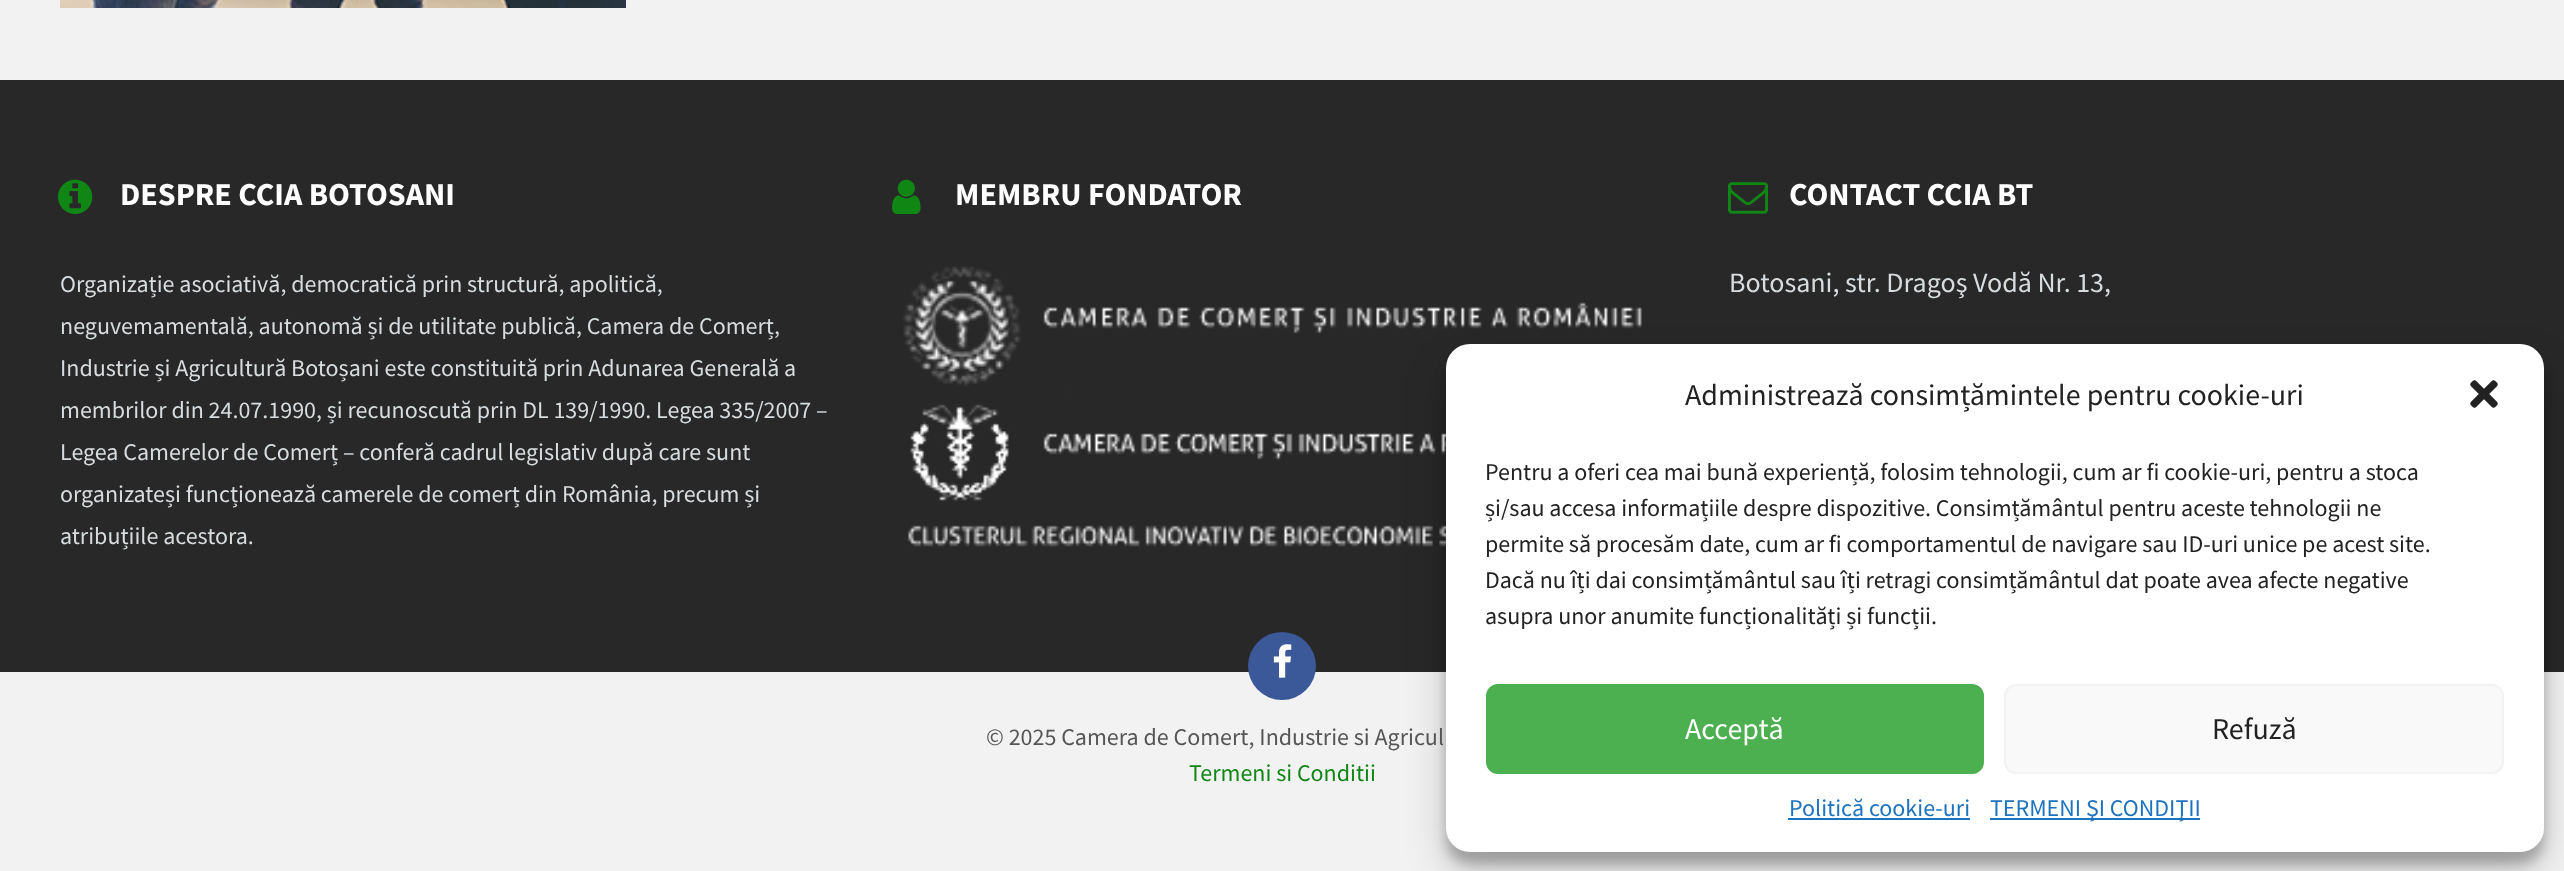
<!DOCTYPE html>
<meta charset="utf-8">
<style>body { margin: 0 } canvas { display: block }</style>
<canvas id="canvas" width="2564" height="871"></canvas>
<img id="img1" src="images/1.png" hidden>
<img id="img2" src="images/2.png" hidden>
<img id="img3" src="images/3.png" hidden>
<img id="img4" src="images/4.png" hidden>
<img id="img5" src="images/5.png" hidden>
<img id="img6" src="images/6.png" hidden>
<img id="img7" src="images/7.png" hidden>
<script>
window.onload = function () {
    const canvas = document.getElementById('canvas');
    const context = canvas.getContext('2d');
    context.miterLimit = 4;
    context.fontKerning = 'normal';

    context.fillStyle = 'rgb(242, 242, 242)';
    context.fillRect(0, 0, 2564, 871);
    context.drawImage(document.getElementById('img1'), 60, 0, 566, 8);
    context.fillStyle = 'rgb(40, 40, 40)';
    context.fillRect(0, 80, 2564, 592);
    context.drawImage(document.getElementById('img2'), 58, 179, 35, 35);
    context.drawImage(document.getElementById('img3'), 892, 179, 29, 35);
    context.drawImage(document.getElementById('img4'), 903, 266, 739, 281);
    context.drawImage(document.getElementById('img5'), 1728, 182, 40, 32);
    context.fillStyle = 'rgb(59, 89, 152)';
    context.beginPath();
    context.arc(1282, 666, 34, 0, 2 * Math.PI);
    context.fill();
    context.drawImage(document.getElementById('img6'), 1273, 644, 19, 34);
    context.fillStyle = 'rgba(0, 0, 0, 0.23)';
    context.filter = 'blur(6px)';
    context.beginPath();
    context.roundRect(1446, 356, 1098, 508, 24);
    context.fill();
    context.filter = 'none';
    context.fillStyle = 'rgba(0, 0, 0, 0.19)';
    context.filter = 'blur(20px)';
    context.beginPath();
    context.roundRect(1446, 364, 1098, 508, 24);
    context.fill();
    context.filter = 'none';
    context.fillStyle = 'rgb(255, 255, 255)';
    context.beginPath();
    context.roundRect(1446, 344, 1098, 508, 24);
    context.fill();
    context.drawImage(document.getElementById('img7'), 2470, 380, 28, 28);
    context.fillStyle = 'rgb(76, 175, 80)';
    context.beginPath();
    context.roundRect(1487, 685, 496, 88, 11);
    context.fill();
    context.strokeStyle = 'rgb(76, 175, 80)';
    context.lineWidth = 2;
    context.stroke();
    context.fillStyle = 'rgb(249, 249, 249)';
    context.beginPath();
    context.roundRect(2005, 685, 498, 88, 11);
    context.fill();
    context.strokeStyle = 'rgb(242, 242, 242)';
    context.stroke();
    context.fillStyle = 'rgb(30, 115, 190)';
    context.fillRect(1788, 818, 182, 2);
    context.fillRect(1990, 818, 210, 2);
    context.font = 'bold 32px Source Sans Pro';
    context.fillStyle = 'rgb(255, 255, 255)';
    context.fillText('DESPRE CCIA BOTOSANI', 120, 205);
    context.font = '24px Source Sans Pro';
    context.fillStyle = 'rgb(215, 220, 223)';
    context.fillText('Organizație asociativă, democratică prin structură, apolitică,', 60, 292);
    context.fillText('neguvemamentală, autonomă și de utilitate publică, Camera de Comerț,', 60, 334);
    context.fillText('Industrie și Agricultură Botoșani este constituită prin Adunarea Generală a', 60, 376);
    context.fillText('membrilor din 24.07.1990, și recunoscută prin DL 139/1990. Legea 335/2007 –', 60, 418);
    context.fillText('Legea Camerelor de Comerț – conferă cadrul legislativ după care sunt', 60, 460);
    context.fillText('organizateși funcționează camerele de comerț din România, precum și', 60, 502);
    context.fillText('atribuțiile acestora.', 60, 544);
    context.font = 'bold 32px Source Sans Pro';
    context.fillStyle = 'rgb(255, 255, 255)';
    context.fillText('MEMBRU FONDATOR', 955, 205);
    context.fillText('CONTACT CCIA BT', 1789, 205);
    context.font = '28px Source Sans Pro';
    context.fillStyle = 'rgb(215, 220, 223)';
    context.fillText('Botosani, str. Dragoş Vodă Nr. 13,', 1729, 292);
    context.font = '24px Source Sans Pro';
    context.fillStyle = 'rgb(86, 86, 86)';
    context.fillText('© 2025 Camera de Comert, Industrie si Agricul', 986, 745);
    context.fillStyle = 'rgb(16, 134, 21)';
    context.fillText('Termeni si Conditii', 1189, 781);
    context.font = '30px Source Sans Pro';
    context.fillStyle = 'rgb(34, 34, 34)';
    context.fillText('Administrează consimțămintele pentru cookie-uri', 1685, 405);
    context.font = '24px Source Sans Pro';
    context.fillText('Pentru a oferi cea mai bună experiență, folosim tehnologii, cum ar fi cookie-uri, pentru a stoca', 1485, 480);
    context.fillText('și/sau accesa informațiile despre dispozitive. Consimțământul pentru aceste tehnologii ne', 1485, 516);
    context.fillText('permite să procesăm date, cum ar fi comportamentul de navigare sau ID-uri unice pe acest site.', 1485, 552);
    context.fillText('Dacă nu îți dai consimțământul sau îți retragi consimțământul dat poate avea afecte negative', 1485, 588);
    context.fillText('asupra unor anumite funcționalități și funcții.', 1485, 624);
    context.font = '30px Source Sans Pro';
    context.fillStyle = 'rgb(255, 255, 255)';
    context.fillText('Acceptă', 1685, 739);
    context.fillStyle = 'rgb(34, 34, 34)';
    context.fillText('Refuză', 2212, 739);
    context.font = '24px Source Sans Pro';
    context.fillStyle = 'rgb(30, 115, 190)';
    context.fillText('Politică cookie-uri', 1789, 816);
    context.fillText('TERMENI ŞI CONDIŢII', 1990, 816);
};
</script>
